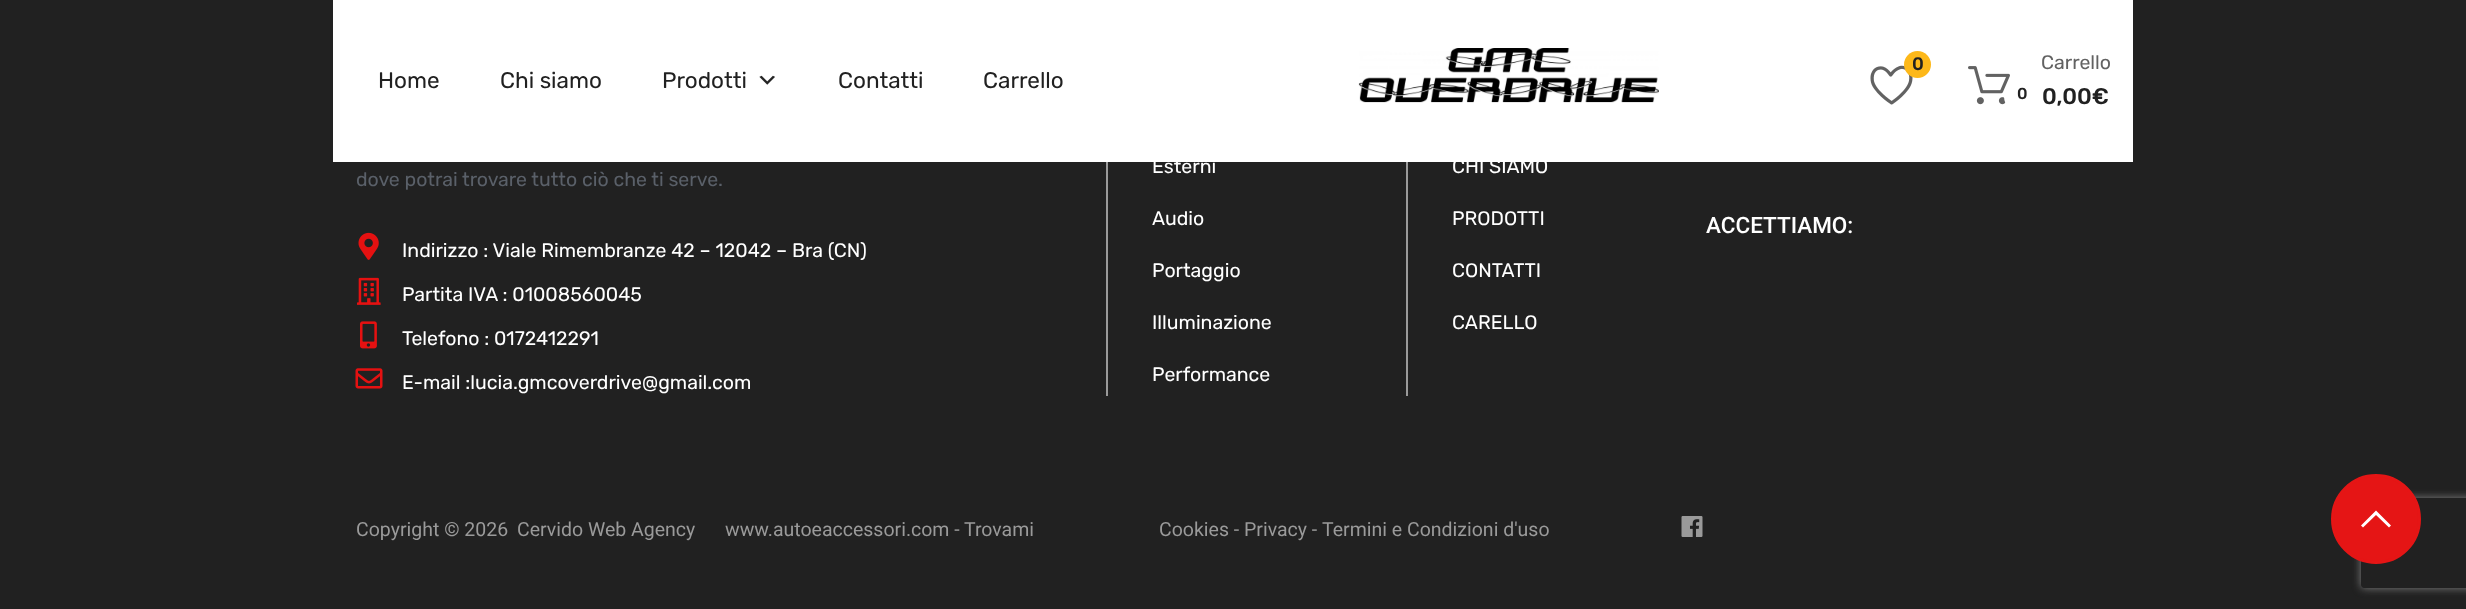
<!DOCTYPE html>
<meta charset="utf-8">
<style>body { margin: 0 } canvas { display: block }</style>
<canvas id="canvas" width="2466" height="609"></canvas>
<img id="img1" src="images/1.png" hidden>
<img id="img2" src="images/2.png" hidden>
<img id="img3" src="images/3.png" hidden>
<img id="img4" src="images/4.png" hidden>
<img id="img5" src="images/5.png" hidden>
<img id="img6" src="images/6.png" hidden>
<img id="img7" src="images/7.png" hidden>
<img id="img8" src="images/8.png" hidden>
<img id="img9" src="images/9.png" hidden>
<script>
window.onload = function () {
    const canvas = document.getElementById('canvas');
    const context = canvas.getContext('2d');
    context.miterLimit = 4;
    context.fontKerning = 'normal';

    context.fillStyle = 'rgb(33, 33, 33)';
    context.fillRect(0, 0, 2466, 609);
    context.fillStyle = 'rgb(255, 255, 255)';
    context.fillRect(333, 0, 1800, 162);
    context.drawImage(document.getElementById('img1'), 759, 75, 16, 10);
    context.drawImage(document.getElementById('img2'), 1358, 48, 301, 55);
    context.drawImage(document.getElementById('img3'), 1870, 65, 43, 40);
    context.fillStyle = 'rgb(253, 184, 25)';
    context.beginPath();
    context.arc(1917.5, 64.5, 13.5, 0, 2 * Math.PI);
    context.fill();
    context.drawImage(document.getElementById('img4'), 1968, 66, 42, 39);
    context.fillStyle = 'rgb(255, 255, 255)';
    context.beginPath();
    context.arc(2022, 96, 18, 0, 2 * Math.PI);
    context.fill();
    context.drawImage(document.getElementById('img5'), 358, 232, 21, 28);
    context.drawImage(document.getElementById('img6'), 357, 277, 24, 28);
    context.drawImage(document.getElementById('img7'), 360, 321, 17, 28);
    context.drawImage(document.getElementById('img8'), 355, 368, 28, 21);
    context.fillStyle = 'rgb(154, 154, 154)';
    context.fillRect(1106, 162, 2, 234);
    context.fillRect(1406, 162, 2, 234);
    context.drawImage(document.getElementById('img9'), 1681, 516, 22, 21);
    context.save();
    context.beginPath();
    context.moveTo(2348, 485);
    context.lineTo(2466, 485);
    context.lineTo(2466, 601);
    context.lineTo(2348, 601);
    context.closePath();
    context.moveTo(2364, 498);
    context.lineTo(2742, 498);
    context.bezierCurveTo(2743.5, 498, 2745, 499.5, 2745, 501);
    context.lineTo(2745, 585);
    context.bezierCurveTo(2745, 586.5, 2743.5, 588, 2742, 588);
    context.lineTo(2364, 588);
    context.bezierCurveTo(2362.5, 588, 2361, 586.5, 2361, 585);
    context.lineTo(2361, 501);
    context.bezierCurveTo(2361, 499.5, 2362.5, 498, 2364, 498);
    context.closePath();
    context.clip('evenodd');
    context.fillStyle = 'rgb(128, 128, 128)';
    context.filter = 'blur(4px)';
    context.beginPath();
    context.roundRect(2361, 498, 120, 90, 3);
    context.fill();
    context.filter = 'none';
    context.restore();
    context.fillStyle = 'rgb(229, 21, 21)';
    context.beginPath();
    context.arc(2376, 519, 43.5, 0, 2 * Math.PI);
    context.fill();
    context.strokeStyle = 'rgb(229, 21, 21)';
    context.lineWidth = 3;
    context.stroke();
    context.fillStyle = 'rgb(255, 255, 255)';
    context.beginPath();
    context.moveTo(2391, 525.5);
    context.lineTo(2376, 510.5);
    context.lineTo(2361, 525.5);
    context.lineTo(2363, 527.5);
    context.lineTo(2376, 515);
    context.lineTo(2389, 527.5);
    context.closePath();
    context.fill();
    context.font = '22.5px Rubik';
    context.fillStyle = 'rgb(33, 33, 33)';
    context.fillText('Home', 378, 88);
    context.fillText('Chi siamo', 500, 88);
    context.fillText('Prodotti', 662, 88);
    context.fillText('Contatti', 838, 88);
    context.fillText('Carrello', 983, 88);
    context.font = '500 18px Rubik';
    context.fillText('0', 1912, 70);
    context.font = '500 16px Rubik';
    context.fillText('0', 2017, 99);
    context.font = '19.5px Rubik';
    context.fillStyle = 'rgb(98, 98, 98)';
    context.fillText('Carrello', 2041, 69);
    context.font = '500 22.5px Rubik';
    context.fillStyle = 'rgb(33, 33, 33)';
    context.fillText('0,00€', 2042, 104);
    context.font = '19.5px Rubik';
    context.fillStyle = 'rgb(90, 96, 105)';
    context.fillText('dove potrai trovare tutto ciò che ti serve.', 356, 186);
    context.fillStyle = 'rgb(255, 255, 255)';
    context.fillText('Indirizzo : Viale Rimembranze 42 – 12042 – Bra (CN)', 402, 257);
    context.fillText('Partita IVA : 01008560045', 402, 301);
    context.fillText('Telefono : 0172412291', 402, 345);
    context.fillText('E-mail :lucia.gmcoverdrive@gmail.com', 402, 389);
    context.fillText('Esterni', 1152, 173);
    context.fillText('Audio', 1152, 225);
    context.fillText('Portaggio', 1152, 277);
    context.fillText('Illuminazione', 1152, 329);
    context.fillText('Performance', 1152, 381);
    context.fillText('CHI SIAMO', 1452, 173);
    context.fillText('PRODOTTI', 1452, 225);
    context.fillText('CONTATTI', 1452, 277);
    context.fillText('CARELLO', 1452, 329);
    context.font = '500 22.5px Roboto';
    context.fillText('ACCETTIAMO:', 1706, 233);
    context.font = '19.5px Roboto';
    context.fillStyle = 'rgb(154, 154, 154)';
    context.fillText('Copyright © 2026', 356, 536);
    context.fillText('Cervido Web Agency', 517, 536);
    context.fillText('www.autoeaccessori.com -', 725, 536);
    context.fillText('Trovami', 964, 536);
    context.fillText('Cookies - Privacy -', 1159, 536);
    context.fillText('Termini e Condizioni d\'uso', 1322, 536);
};
</script>
